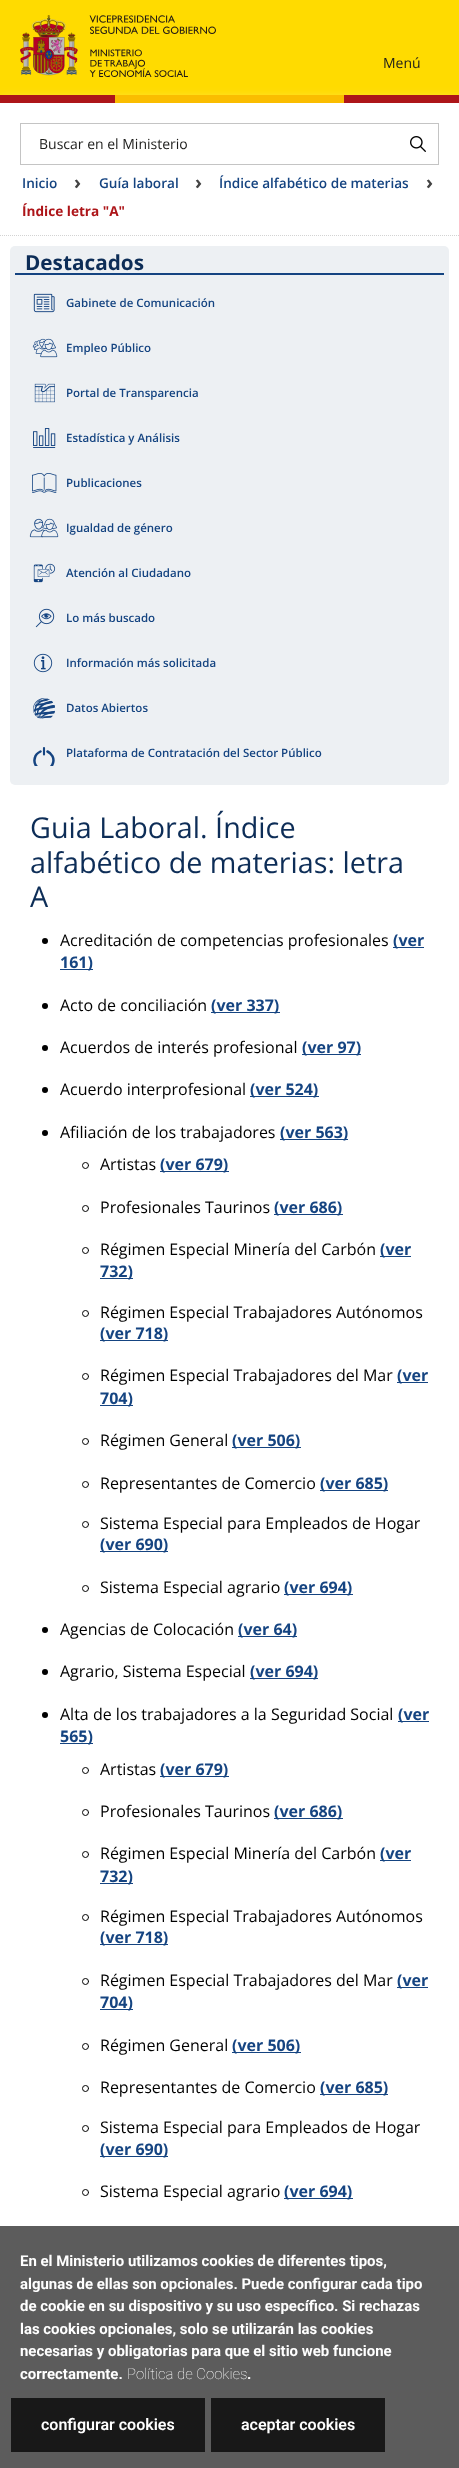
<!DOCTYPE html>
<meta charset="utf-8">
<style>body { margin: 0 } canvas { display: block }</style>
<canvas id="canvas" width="459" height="2468"></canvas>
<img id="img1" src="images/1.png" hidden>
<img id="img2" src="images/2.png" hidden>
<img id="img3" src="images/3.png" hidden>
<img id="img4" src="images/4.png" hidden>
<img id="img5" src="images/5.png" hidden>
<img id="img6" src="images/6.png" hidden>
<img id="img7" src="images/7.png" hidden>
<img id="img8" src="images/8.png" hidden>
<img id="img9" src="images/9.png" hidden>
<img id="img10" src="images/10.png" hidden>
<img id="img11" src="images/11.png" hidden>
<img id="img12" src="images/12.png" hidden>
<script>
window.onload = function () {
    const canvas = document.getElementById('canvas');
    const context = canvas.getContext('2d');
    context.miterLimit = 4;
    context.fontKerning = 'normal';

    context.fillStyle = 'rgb(255, 255, 255)';
    context.fillRect(0, 0, 459, 2468);
    context.fillStyle = 'rgb(255, 219, 0)';
    context.fillRect(0, 0, 459, 95);
    context.drawImage(document.getElementById('img1'), 20, 15, 196, 62);
    context.fillStyle = 'rgb(255, 255, 255)';
    context.filter = 'blur(7.5px)';
    context.beginPath();
    context.rect(0, 105, 459, 8);
    context.fill();
    context.filter = 'none';
    context.fillStyle = 'rgb(173, 21, 25)';
    context.fillRect(0, 95, 115, 8);
    context.fillStyle = 'rgb(250, 189, 0)';
    context.fillRect(115, 95, 229, 8);
    context.fillStyle = 'rgb(173, 21, 25)';
    context.fillRect(344, 95, 115, 8);
    context.strokeStyle = 'rgb(196, 196, 196)';
    context.strokeRect(20.5, 123.5, 418, 41);
    context.drawImage(document.getElementById('img2'), 410, 136, 16, 16);
    context.beginPath();
    context.moveTo(0, 235.5);
    context.lineTo(459, 235.5);
    context.strokeStyle = 'rgb(211, 211, 211)';
    context.setLineDash([1, 1]);
    context.stroke();
    context.fillStyle = 'rgb(237, 240, 243)';
    context.beginPath();
    context.roundRect(10, 246, 439, 539, 5);
    context.fill();
    context.fillStyle = 'rgb(21, 68, 129)';
    context.fillRect(15, 273, 429, 2);
    context.drawImage(document.getElementById('img3'), 33, 293, 22, 20);
    context.drawImage(document.getElementById('img4'), 32, 338, 26, 20);
    context.drawImage(document.getElementById('img5'), 34, 383, 21, 20);
    context.drawImage(document.getElementById('img6'), 33, 428, 23, 20);
    context.drawImage(document.getElementById('img7'), 32, 473, 25, 20);
    context.drawImage(document.getElementById('img8'), 29, 518, 30, 20);
    context.drawImage(document.getElementById('img9'), 33, 563, 23, 20);
    context.drawImage(document.getElementById('img10'), 35, 608, 20, 20);
    context.drawImage(document.getElementById('img11'), 33, 653, 20, 20);
    context.drawImage(document.getElementById('img12'), 33, 698, 22, 21);
    context.save();
    context.beginPath();
    context.rect(33, 747, 22, 19);
    context.clip();
    context.beginPath();
    context.moveTo(47.5, 751.5);
    context.bezierCurveTo(52, 753.5, 54.5, 758.5, 53, 763);
    context.bezierCurveTo(49.5, 775, 31, 769.5, 35, 757.5);
    context.bezierCurveTo(35.5, 755, 37.5, 753, 40.5, 751.5);
    context.strokeStyle = 'rgb(21, 68, 129)';
    context.lineWidth = 2.5;
    context.lineCap = 'round';
    context.lineJoin = 'round';
    context.setLineDash([]);
    context.stroke();
    context.restore();
    context.beginPath();
    context.moveTo(44, 748);
    context.lineTo(44, 754.5);
    context.strokeStyle = 'rgb(21, 68, 129)';
    context.lineWidth = 2.1;
    context.lineCap = 'round';
    context.lineJoin = 'round';
    context.setLineDash([]);
    context.stroke();
    context.fillStyle = 'rgb(0, 0, 0)';
    context.beginPath();
    context.arc(45, 941, 3, 0, 2 * Math.PI);
    context.fill();
    context.fillStyle = 'rgb(21, 68, 129)';
    context.fillRect(393, 947, 31, 1);
    context.fillRect(60, 969, 33, 1);
    context.fillStyle = 'rgb(0, 0, 0)';
    context.beginPath();
    context.arc(45, 1006, 3, 0, 2 * Math.PI);
    context.fill();
    context.fillStyle = 'rgb(21, 68, 129)';
    context.fillRect(211, 1012, 69, 1);
    context.fillStyle = 'rgb(0, 0, 0)';
    context.beginPath();
    context.arc(45, 1048, 3, 0, 2 * Math.PI);
    context.fill();
    context.fillStyle = 'rgb(21, 68, 129)';
    context.fillRect(302, 1054, 59, 1);
    context.fillStyle = 'rgb(0, 0, 0)';
    context.beginPath();
    context.arc(45, 1090, 3, 0, 2 * Math.PI);
    context.fill();
    context.fillStyle = 'rgb(21, 68, 129)';
    context.fillRect(250, 1096, 69, 1);
    context.fillStyle = 'rgb(0, 0, 0)';
    context.beginPath();
    context.arc(45, 1133, 3, 0, 2 * Math.PI);
    context.fill();
    context.fillStyle = 'rgb(21, 68, 129)';
    context.fillRect(280, 1139, 68, 1);
    context.beginPath();
    context.arc(85.5, 1165.5, 3, 0, 2 * Math.PI);
    context.strokeStyle = 'rgb(0, 0, 0)';
    context.lineWidth = 1;
    context.stroke();
    context.fillRect(160, 1171, 69, 1);
    context.beginPath();
    context.arc(85.5, 1208.5, 3, 0, 2 * Math.PI);
    context.stroke();
    context.fillRect(274, 1214, 69, 1);
    context.beginPath();
    context.arc(85.5, 1250.5, 3, 0, 2 * Math.PI);
    context.stroke();
    context.fillRect(380, 1256, 31, 1);
    context.fillRect(100, 1278, 33, 1);
    context.beginPath();
    context.arc(85.5, 1313.5, 3, 0, 2 * Math.PI);
    context.stroke();
    context.fillRect(100, 1340, 68, 1);
    context.beginPath();
    context.arc(85.5, 1376.5, 3, 0, 2 * Math.PI);
    context.stroke();
    context.fillRect(397, 1382, 31, 1);
    context.fillRect(100, 1405, 33, 1);
    context.beginPath();
    context.arc(85.5, 1441.5, 3, 0, 2 * Math.PI);
    context.stroke();
    context.fillRect(232, 1447, 69, 1);
    context.beginPath();
    context.arc(85.5, 1484.5, 3, 0, 2 * Math.PI);
    context.stroke();
    context.fillRect(320, 1490, 68, 1);
    context.beginPath();
    context.arc(85.5, 1524.5, 3, 0, 2 * Math.PI);
    context.stroke();
    context.fillRect(100, 1551, 68, 1);
    context.beginPath();
    context.arc(85.5, 1588.5, 3, 0, 2 * Math.PI);
    context.stroke();
    context.fillRect(284, 1594, 69, 1);
    context.fillStyle = 'rgb(0, 0, 0)';
    context.beginPath();
    context.arc(45, 1630, 3, 0, 2 * Math.PI);
    context.fill();
    context.fillStyle = 'rgb(21, 68, 129)';
    context.fillRect(238, 1636, 59, 1);
    context.fillStyle = 'rgb(0, 0, 0)';
    context.beginPath();
    context.arc(45, 1672, 3, 0, 2 * Math.PI);
    context.fill();
    context.fillStyle = 'rgb(21, 68, 129)';
    context.fillRect(250, 1678, 68, 1);
    context.fillStyle = 'rgb(0, 0, 0)';
    context.beginPath();
    context.arc(45, 1715, 3, 0, 2 * Math.PI);
    context.fill();
    context.fillStyle = 'rgb(21, 68, 129)';
    context.fillRect(398, 1721, 31, 1);
    context.fillRect(60, 1743, 33, 1);
    context.beginPath();
    context.arc(85.5, 1770.5, 3, 0, 2 * Math.PI);
    context.stroke();
    context.fillRect(160, 1776, 69, 1);
    context.beginPath();
    context.arc(85.5, 1812.5, 3, 0, 2 * Math.PI);
    context.stroke();
    context.fillRect(274, 1818, 69, 1);
    context.beginPath();
    context.arc(85.5, 1854.5, 3, 0, 2 * Math.PI);
    context.stroke();
    context.fillRect(380, 1860, 31, 1);
    context.fillRect(100, 1883, 33, 1);
    context.beginPath();
    context.arc(85.5, 1917.5, 3, 0, 2 * Math.PI);
    context.stroke();
    context.fillRect(100, 1944, 68, 1);
    context.beginPath();
    context.arc(85.5, 1981.5, 3, 0, 2 * Math.PI);
    context.stroke();
    context.fillRect(397, 1987, 31, 1);
    context.fillRect(100, 2009, 33, 1);
    context.beginPath();
    context.arc(85.5, 2046.5, 3, 0, 2 * Math.PI);
    context.stroke();
    context.fillRect(232, 2052, 69, 1);
    context.beginPath();
    context.arc(85.5, 2088.5, 3, 0, 2 * Math.PI);
    context.stroke();
    context.fillRect(320, 2094, 68, 1);
    context.beginPath();
    context.arc(85.5, 2128.5, 3, 0, 2 * Math.PI);
    context.stroke();
    context.fillRect(100, 2156, 68, 1);
    context.beginPath();
    context.arc(85.5, 2192.5, 3, 0, 2 * Math.PI);
    context.stroke();
    context.fillRect(284, 2198, 69, 1);
    context.fillStyle = 'rgb(92, 92, 92)';
    context.fillRect(0, 2226, 459, 242);
    context.fillStyle = 'rgb(24, 24, 24)';
    context.fillRect(11, 2398, 194, 54);
    context.fillRect(211, 2398, 174, 54);
    context.font = '14px Open Sans';
    context.fillStyle = 'rgb(29, 29, 27)';
    context.fillText('Menú', 383, 68);
    context.fillText('Buscar en el Ministerio', 39, 149);
    context.font = '600 13.6px Open Sans';
    context.fillStyle = 'rgb(21, 68, 129)';
    context.fillText('Inicio', 22, 188);
    context.font = 'bold 19px Open Sans';
    context.fillStyle = 'rgb(68, 68, 68)';
    context.fillText('›', 74, 189);
    context.font = '600 13.6px Open Sans';
    context.fillStyle = 'rgb(21, 68, 129)';
    context.fillText('Guía laboral', 99, 188);
    context.font = 'bold 19px Open Sans';
    context.fillStyle = 'rgb(68, 68, 68)';
    context.fillText('›', 195, 189);
    context.font = '600 13.6px Open Sans';
    context.fillStyle = 'rgb(21, 68, 129)';
    context.fillText('Índice alfabético de materias', 219, 188);
    context.font = 'bold 19px Open Sans';
    context.fillStyle = 'rgb(68, 68, 68)';
    context.fillText('›', 426, 189);
    context.font = 'bold 13.6px Open Sans';
    context.fillStyle = 'rgb(173, 21, 25)';
    context.fillText('Índice letra "A"', 22, 216);
    context.font = 'bold 20.75px Open Sans';
    context.fillStyle = 'rgb(13, 45, 87)';
    context.fillText('Destacados', 25, 270);
    context.font = '600 11.5px Open Sans';
    context.fillStyle = 'rgb(21, 68, 129)';
    context.fillText('Gabinete de Comunicación', 66, 307);
    context.fillText('Empleo Público', 66, 352);
    context.fillText('Portal de Transparencia', 66, 397);
    context.fillText('Estadística y Análisis', 66, 442);
    context.fillText('Publicaciones', 66, 487);
    context.fillText('Igualdad de género', 66, 532);
    context.fillText('Atención al Ciudadano', 66, 577);
    context.fillText('Lo más buscado', 66, 622);
    context.fillText('Información más solicitada', 66, 667);
    context.fillText('Datos Abiertos', 66, 712);
    context.fillText('Plataforma de Contratación del Sector Público', 66, 757);
    context.font = '28.75px Open Sans';
    context.fillStyle = 'rgb(13, 45, 87)';
    context.fillText('Guia Laboral. Índice', 30, 838);
    context.fillText('alfabético de materias: letra', 30, 873);
    context.fillText('A', 30, 907);
    context.font = '16px Open Sans';
    context.fillStyle = 'rgb(0, 0, 0)';
    context.fillText('Acreditación de competencias profesionales', 60, 946);
    context.font = 'bold 16px Open Sans';
    context.fillStyle = 'rgb(21, 68, 129)';
    context.fillText('(ver', 393, 946);
    context.fillText('161)', 60, 968);
    context.font = '16px Open Sans';
    context.fillStyle = 'rgb(0, 0, 0)';
    context.fillText('Acto de conciliación', 60, 1011);
    context.font = 'bold 16px Open Sans';
    context.fillStyle = 'rgb(21, 68, 129)';
    context.fillText('(ver 337)', 211, 1011);
    context.font = '16px Open Sans';
    context.fillStyle = 'rgb(0, 0, 0)';
    context.fillText('Acuerdos de interés profesional', 60, 1053);
    context.font = 'bold 16px Open Sans';
    context.fillStyle = 'rgb(21, 68, 129)';
    context.fillText('(ver 97)', 302, 1053);
    context.font = '16px Open Sans';
    context.fillStyle = 'rgb(0, 0, 0)';
    context.fillText('Acuerdo interprofesional', 60, 1095);
    context.font = 'bold 16px Open Sans';
    context.fillStyle = 'rgb(21, 68, 129)';
    context.fillText('(ver 524)', 250, 1095);
    context.font = '16px Open Sans';
    context.fillStyle = 'rgb(0, 0, 0)';
    context.fillText('Afiliación de los trabajadores', 60, 1138);
    context.font = 'bold 16px Open Sans';
    context.fillStyle = 'rgb(21, 68, 129)';
    context.fillText('(ver 563)', 280, 1138);
    context.font = '16px Open Sans';
    context.fillStyle = 'rgb(0, 0, 0)';
    context.fillText('Artistas', 100, 1170);
    context.font = 'bold 16px Open Sans';
    context.fillStyle = 'rgb(21, 68, 129)';
    context.fillText('(ver 679)', 160, 1170);
    context.font = '16px Open Sans';
    context.fillStyle = 'rgb(0, 0, 0)';
    context.fillText('Profesionales Taurinos', 100, 1213);
    context.font = 'bold 16px Open Sans';
    context.fillStyle = 'rgb(21, 68, 129)';
    context.fillText('(ver 686)', 274, 1213);
    context.font = '16px Open Sans';
    context.fillStyle = 'rgb(0, 0, 0)';
    context.fillText('Régimen Especial Minería del Carbón', 100, 1255);
    context.font = 'bold 16px Open Sans';
    context.fillStyle = 'rgb(21, 68, 129)';
    context.fillText('(ver', 380, 1255);
    context.fillText('732)', 100, 1277);
    context.font = '16px Open Sans';
    context.fillStyle = 'rgb(0, 0, 0)';
    context.fillText('Régimen Especial Trabajadores Autónomos', 100, 1318);
    context.font = 'bold 16px Open Sans';
    context.fillStyle = 'rgb(21, 68, 129)';
    context.fillText('(ver 718)', 100, 1339);
    context.font = '16px Open Sans';
    context.fillStyle = 'rgb(0, 0, 0)';
    context.fillText('Régimen Especial Trabajadores del Mar', 100, 1381);
    context.font = 'bold 16px Open Sans';
    context.fillStyle = 'rgb(21, 68, 129)';
    context.fillText('(ver', 397, 1381);
    context.fillText('704)', 100, 1404);
    context.font = '16px Open Sans';
    context.fillStyle = 'rgb(0, 0, 0)';
    context.fillText('Régimen General', 100, 1446);
    context.font = 'bold 16px Open Sans';
    context.fillStyle = 'rgb(21, 68, 129)';
    context.fillText('(ver 506)', 232, 1446);
    context.font = '16px Open Sans';
    context.fillStyle = 'rgb(0, 0, 0)';
    context.fillText('Representantes de Comercio', 100, 1489);
    context.font = 'bold 16px Open Sans';
    context.fillStyle = 'rgb(21, 68, 129)';
    context.fillText('(ver 685)', 320, 1489);
    context.font = '16px Open Sans';
    context.fillStyle = 'rgb(0, 0, 0)';
    context.fillText('Sistema Especial para Empleados de Hogar', 100, 1529);
    context.font = 'bold 16px Open Sans';
    context.fillStyle = 'rgb(21, 68, 129)';
    context.fillText('(ver 690)', 100, 1550);
    context.font = '16px Open Sans';
    context.fillStyle = 'rgb(0, 0, 0)';
    context.fillText('Sistema Especial agrario', 100, 1593);
    context.font = 'bold 16px Open Sans';
    context.fillStyle = 'rgb(21, 68, 129)';
    context.fillText('(ver 694)', 284, 1593);
    context.font = '16px Open Sans';
    context.fillStyle = 'rgb(0, 0, 0)';
    context.fillText('Agencias de Colocación', 60, 1635);
    context.font = 'bold 16px Open Sans';
    context.fillStyle = 'rgb(21, 68, 129)';
    context.fillText('(ver 64)', 238, 1635);
    context.font = '16px Open Sans';
    context.fillStyle = 'rgb(0, 0, 0)';
    context.fillText('Agrario, Sistema Especial', 60, 1677);
    context.font = 'bold 16px Open Sans';
    context.fillStyle = 'rgb(21, 68, 129)';
    context.fillText('(ver 694)', 250, 1677);
    context.font = '16px Open Sans';
    context.fillStyle = 'rgb(0, 0, 0)';
    context.fillText('Alta de los trabajadores a la Seguridad Social', 60, 1720);
    context.font = 'bold 16px Open Sans';
    context.fillStyle = 'rgb(21, 68, 129)';
    context.fillText('(ver', 398, 1720);
    context.fillText('565)', 60, 1742);
    context.font = '16px Open Sans';
    context.fillStyle = 'rgb(0, 0, 0)';
    context.fillText('Artistas', 100, 1775);
    context.font = 'bold 16px Open Sans';
    context.fillStyle = 'rgb(21, 68, 129)';
    context.fillText('(ver 679)', 160, 1775);
    context.font = '16px Open Sans';
    context.fillStyle = 'rgb(0, 0, 0)';
    context.fillText('Profesionales Taurinos', 100, 1817);
    context.font = 'bold 16px Open Sans';
    context.fillStyle = 'rgb(21, 68, 129)';
    context.fillText('(ver 686)', 274, 1817);
    context.font = '16px Open Sans';
    context.fillStyle = 'rgb(0, 0, 0)';
    context.fillText('Régimen Especial Minería del Carbón', 100, 1859);
    context.font = 'bold 16px Open Sans';
    context.fillStyle = 'rgb(21, 68, 129)';
    context.fillText('(ver', 380, 1859);
    context.fillText('732)', 100, 1882);
    context.font = '16px Open Sans';
    context.fillStyle = 'rgb(0, 0, 0)';
    context.fillText('Régimen Especial Trabajadores Autónomos', 100, 1922);
    context.font = 'bold 16px Open Sans';
    context.fillStyle = 'rgb(21, 68, 129)';
    context.fillText('(ver 718)', 100, 1943);
    context.font = '16px Open Sans';
    context.fillStyle = 'rgb(0, 0, 0)';
    context.fillText('Régimen Especial Trabajadores del Mar', 100, 1986);
    context.font = 'bold 16px Open Sans';
    context.fillStyle = 'rgb(21, 68, 129)';
    context.fillText('(ver', 397, 1986);
    context.fillText('704)', 100, 2008);
    context.font = '16px Open Sans';
    context.fillStyle = 'rgb(0, 0, 0)';
    context.fillText('Régimen General', 100, 2051);
    context.font = 'bold 16px Open Sans';
    context.fillStyle = 'rgb(21, 68, 129)';
    context.fillText('(ver 506)', 232, 2051);
    context.font = '16px Open Sans';
    context.fillStyle = 'rgb(0, 0, 0)';
    context.fillText('Representantes de Comercio', 100, 2093);
    context.font = 'bold 16px Open Sans';
    context.fillStyle = 'rgb(21, 68, 129)';
    context.fillText('(ver 685)', 320, 2093);
    context.font = '16px Open Sans';
    context.fillStyle = 'rgb(0, 0, 0)';
    context.fillText('Sistema Especial para Empleados de Hogar', 100, 2133);
    context.font = 'bold 16px Open Sans';
    context.fillStyle = 'rgb(21, 68, 129)';
    context.fillText('(ver 690)', 100, 2155);
    context.font = '16px Open Sans';
    context.fillStyle = 'rgb(0, 0, 0)';
    context.fillText('Sistema Especial agrario', 100, 2197);
    context.font = 'bold 16px Open Sans';
    context.fillStyle = 'rgb(21, 68, 129)';
    context.fillText('(ver 694)', 284, 2197);
    context.font = 'bold 14.95px Roboto';
    context.fillStyle = 'rgb(255, 255, 255)';
    context.fillText('En el Ministerio utilizamos cookies de diferentes tipos,', 20, 2266);
    context.fillText('algunas de ellas son opcionales. Puede configurar cada tipo', 20, 2289);
    context.fillText('de cookie en su dispositivo y su uso específico. Si rechazas', 20, 2311);
    context.fillText('las cookies opcionales, solo se utilizarán las cookies', 20, 2334);
    context.fillText('necesarias y obligatorias para que el sitio web funcione', 20, 2356);
    context.fillText('correctamente.', 20, 2379);
    context.font = '100 14.95px Roboto';
    context.fillText('Política de Cookies', 127, 2379);
    context.font = 'bold 14.95px Roboto';
    context.fillText('.', 247, 2379);
    context.font = '600 16px Roboto';
    context.fillText('configurar cookies', 41, 2430);
    context.fillText('aceptar cookies', 241, 2430);
};
</script>
